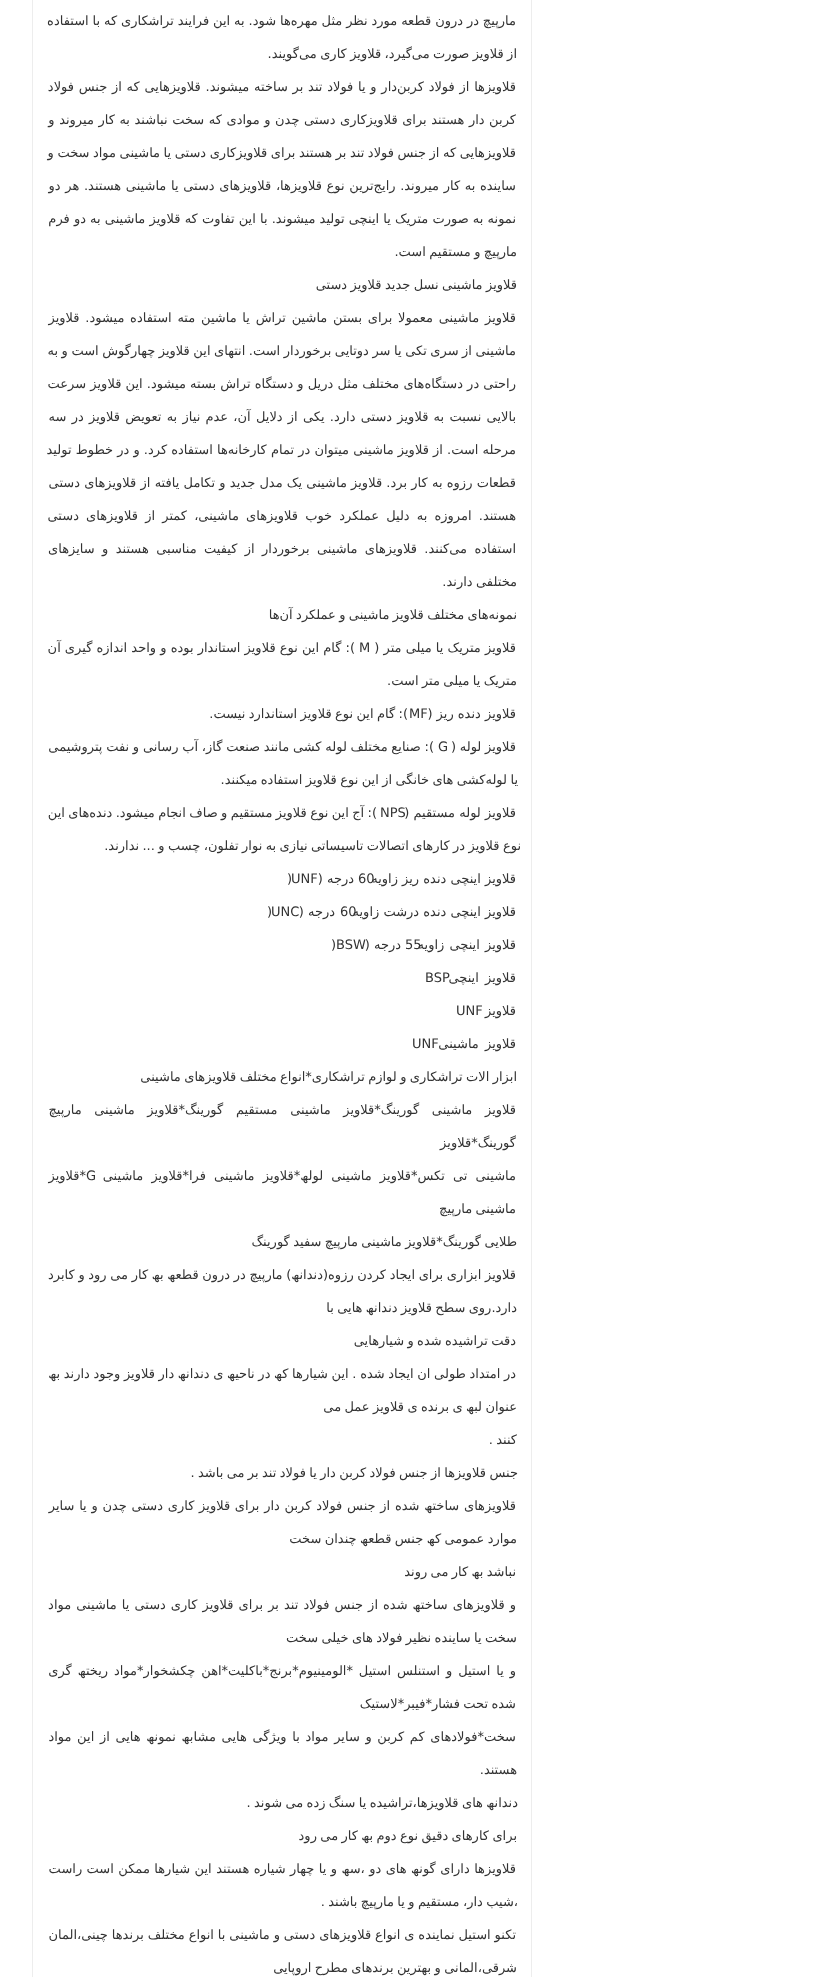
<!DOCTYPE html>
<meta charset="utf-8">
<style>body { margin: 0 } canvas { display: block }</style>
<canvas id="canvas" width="814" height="1977"></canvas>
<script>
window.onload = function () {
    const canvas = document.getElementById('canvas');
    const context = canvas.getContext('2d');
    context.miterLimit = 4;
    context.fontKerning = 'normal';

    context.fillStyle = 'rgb(255, 255, 255)';
    context.fillRect(0, 0, 814, 1977);
    context.strokeStyle = 'rgb(237, 237, 237)';
    context.strokeRect(32.5, -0.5, 499, 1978);
    context.wordSpacing = '-0.25px';
    context.direction = 'rtl';
    context.font = '13px DejaVu Sans';
    context.fillStyle = 'rgb(51, 51, 51)';
    context.fillText('مارپیچ در درون قطعه مورد نظر مثل مهره‌ها شود. به این فرایند تراشکاری که با استفاده', 516, 25);
    context.wordSpacing = '-0.75px';
    context.fillText('از قلاویز صورت می‌گیرد، قلاویز کاری می‌گویند.', 517, 58);
    context.wordSpacing = '0.6px';
    context.fillText('قلاویزها از فولاد کربن‌دار و یا فولاد تند بر ساخته میشوند. قلاویزهایی که از جنس فولاد', 516, 91);
    context.wordSpacing = '0.4px';
    context.fillText('کربن دار هستند برای قلاویز‌کاری دستی چدن و موادی که سخت نباشند به کار میروند و', 516, 124);
    context.wordSpacing = '-0.6px';
    context.fillText('قلاویزهایی که از جنس فولاد تند بر هستند برای قلاویزکاری دستی یا ماشینی مواد سخت و', 516, 157);
    context.wordSpacing = '0.5px';
    context.fillText('ساینده به کار میروند. رایج‌ترین نوع قلاویزها، قلاویزهای دستی یا ماشینی هستند. هر دو', 516, 190);
    context.wordSpacing = '0px';
    context.fillText('نمونه به صورت متریک یا اینچی تولید میشوند. با این تفاوت که قلاویز ماشینی به دو فرم', 516, 223);
    context.wordSpacing = '-0.75px';
    context.fillText('مارپیچ و مستقیم است.', 517, 256);
    context.fillText('قلاویز ماشینی نسل جدید قلاویز دستی', 517, 289);
    context.wordSpacing = '1.6px';
    context.fillText('قلاویز ماشینی معمولا برای بستن ماشین تراش یا ماشین مته استفاده میشود. قلاویز', 516, 322);
    context.wordSpacing = '-0.6px';
    context.fillText('ماشینی از سری تکی یا سر دوتایی برخوردار است. انتهای این قلاویز چهارگوش است و به', 516, 355);
    context.wordSpacing = '0px';
    context.fillText('راحتی در دستگاه‌های مختلف مثل دریل و دستگاه تراش بسته میشود. این قلاویز سرعت', 516, 388);
    context.wordSpacing = '1.1px';
    context.fillText('بالایی نسبت به قلاویز دستی دارد. یکی از دلایل آن، عدم نیاز به تعویض قلاویز در سه', 516, 421);
    context.wordSpacing = '0px';
    context.fillText('مرحله است. از قلاویز ماشینی میتوان در تمام کارخانه‌ها استفاده کرد. و در خطوط تولید', 516, 454);
    context.wordSpacing = '0.1px';
    context.fillText('قطعات رزوه به کار برد. قلاویز ماشینی یک مدل جدید و تکامل یافته از قلاویزهای دستی', 516, 487);
    context.wordSpacing = '3px';
    context.fillText('هستند. امروزه به دلیل عملکرد خوب قلاویزهای ماشینی، کمتر از قلاویزهای دستی', 516, 520);
    context.wordSpacing = '3.25px';
    context.fillText('استفاده می‌کنند. قلاویزهای ماشینی برخوردار از کیفیت مناسبی هستند و سایزهای', 516, 553);
    context.wordSpacing = '-0.75px';
    context.fillText('مختلفی دارند.', 517, 586);
    context.fillText('نمونه‌های مختلف قلاویز ماشینی و عملکرد آن‌ها', 517, 619);
    context.wordSpacing = '0px';
    context.fillText('قلاویز متریک یا میلی متر (', 516, 652);
    context.direction = 'ltr';
    context.fillText('M', 359, 652);
    context.direction = 'rtl';
    context.fillText('): گام این نوع قلاویز استاندار بوده و واحد اندازه گیری آن', 355, 652);
    context.wordSpacing = '-0.75px';
    context.fillText('متریک یا میلی متر است.', 517, 685);
    context.wordSpacing = '0px';
    context.fillText('قلاویز دنده ریز (', 516, 718);
    context.wordSpacing = '-0.75px';
    context.fillText('): گام این نوع قلاویز استاندارد نیست.', 408, 718);
    context.wordSpacing = '0px';
    context.direction = 'ltr';
    context.fillText('MF', 409, 718);
    context.wordSpacing = '-0.5px';
    context.direction = 'rtl';
    context.fillText('قلاویز لوله (', 516, 751);
    context.wordSpacing = '0px';
    context.direction = 'ltr';
    context.fillText('G', 438, 751);
    context.wordSpacing = '-0.4px';
    context.direction = 'rtl';
    context.fillText('): صنایع مختلف لوله کشی مانند صنعت گاز، آب رسانی و نفت پتروشیمی', 434, 751);
    context.wordSpacing = '-0.75px';
    context.fillText('یا لوله‌کشی های خانگی از این نوع قلاویز استفاده میکنند.', 518, 784);
    context.fillText('): آج این نوع قلاویز مستقیم و صاف انجام میشود. دنده‌های این', 377, 817);
    context.wordSpacing = '0px';
    context.direction = 'ltr';
    context.fillText('NPS', 380, 817);
    context.direction = 'rtl';
    context.fillText('قلاویز لوله مستقیم (', 516, 817);
    context.wordSpacing = '-0.75px';
    context.fillText('نوع قلاویز در کارهای اتصالات تاسیساتی نیازی به نوار تفلون، چسب و ... ندارند.', 521, 850);
    context.wordSpacing = '0px';
    context.direction = 'ltr';
    context.fillText('60', 358, 883);
    context.direction = 'rtl';
    context.fillText('قلاویز اینچی دنده ریز زاویه', 516, 883);
    context.fillText('درجه (', 354, 883);
    context.direction = 'ltr';
    context.fillText('UNF', 291, 883);
    context.fillText(')', 287, 883);
    context.fillText('60', 340, 916);
    context.direction = 'rtl';
    context.fillText('قلاویز اینچی دنده درشت زاویه', 516, 916);
    context.fillText('درجه (', 335, 916);
    context.direction = 'ltr';
    context.fillText('UNC', 271, 916);
    context.fillText(')', 267, 916);
    context.fillText('55', 405, 949);
    context.wordSpacing = '1px';
    context.direction = 'rtl';
    context.fillText('قلاویز اینچی زاویه', 516, 949);
    context.wordSpacing = '0px';
    context.direction = 'ltr';
    context.fillText('BSW', 336, 949);
    context.direction = 'rtl';
    context.fillText('درجه (', 401, 949);
    context.direction = 'ltr';
    context.fillText(')', 331, 949);
    context.fillText('BSP', 425, 982);
    context.wordSpacing = '2px';
    context.direction = 'rtl';
    context.fillText('قلاویز اینچی', 516, 982);
    context.wordSpacing = '0px';
    context.fillText('قلاویز', 516, 1015);
    context.direction = 'ltr';
    context.fillText('UNF', 456, 1015);
    context.wordSpacing = '2px';
    context.direction = 'rtl';
    context.fillText('قلاویز ماشینی', 516, 1048);
    context.wordSpacing = '0px';
    context.direction = 'ltr';
    context.fillText('UNF', 412, 1048);
    context.wordSpacing = '-0.75px';
    context.direction = 'rtl';
    context.fillText('ابزار الات تراشکاری و لوازم تراشکاری*انواع مختلف قلاویزھای ماشینی', 517, 1081);
    context.wordSpacing = '8.5px';
    context.fillText('قلاویز ماشینی گورینگ*قلاویز ماشینی مستقیم گورینگ*قلاویز ماشینی مارپیچ', 516, 1114);
    context.wordSpacing = '0px';
    context.fillText('گورینگ*قلاویز', 516, 1147);
    context.wordSpacing = '4px';
    context.fillText('ماشینی تی تکس*قلاویز ماشینی لولھ*قلاویز ماشینی فرا*قلاویز ماشینی', 516, 1180);
    context.wordSpacing = '0px';
    context.direction = 'ltr';
    context.fillText('G', 86, 1180);
    context.direction = 'rtl';
    context.fillText('*قلاویز', 86, 1180);
    context.wordSpacing = '-0.75px';
    context.fillText('ماشینی مارپیچ', 516, 1213);
    context.fillText('طلایی گورینگ*قلاویز ماشینی مارپیچ سفید گورینگ', 517, 1246);
    context.wordSpacing = '-0.5px';
    context.fillText('قلاویز ابزاری برای ایجاد کردن رزوه(دندانھ) مارپیچ در درون قطعھ بھ کار می رود و کابرد', 516, 1279);
    context.wordSpacing = '-0.75px';
    context.fillText('دارد.روی سطح قلاویز دندانھ ھایی با', 517, 1312);
    context.fillText('دقت تراشیده شده و شیارھایی', 516, 1345);
    context.wordSpacing = '-0.5px';
    context.fillText('در امتداد طولی ان ایجاد شده . این شیارھا کھ در ناحیھ ی دندانھ دار قلاویز وجود دارند بھ', 516, 1378);
    context.wordSpacing = '-0.75px';
    context.fillText('عنوان لبھ ی برنده ی قلاویز عمل می', 517, 1411);
    context.fillText('کنند .', 517, 1444);
    context.fillText('جنس قلاویزھا از جنس فولاد کربن دار یا فولاد تند بر می باشد .', 518, 1477);
    context.wordSpacing = '0.6px';
    context.fillText('قلاویزھای ساختھ شده از جنس فولاد کربن دار برای قلاویز کاری دستی چدن و یا سایر', 516, 1510);
    context.wordSpacing = '-0.75px';
    context.fillText('موارد عمومی کھ جنس قطعھ چندان سخت', 517, 1543);
    context.fillText('نباشد بھ کار می روند', 516, 1576);
    context.wordSpacing = '0.9px';
    context.fillText('و قلاویزھای ساختھ شده از جنس فولاد تند بر برای قلاویز کاری دستی یا ماشینی مواد', 516, 1609);
    context.wordSpacing = '-0.75px';
    context.fillText('سخت یا ساینده نظیر فولاد ھای خیلی سخت', 517, 1642);
    context.wordSpacing = '1.75px';
    context.fillText('و یا استیل و استنلس استیل *الومینیوم*برنج*باکلیت*اھن چکشخوار*مواد ریختھ گری', 516, 1675);
    context.wordSpacing = '-0.75px';
    context.fillText('شده تحت فشار*فیبر*لاستیک', 516, 1708);
    context.wordSpacing = '1.5px';
    context.fillText('سخت*فولادھای کم کربن و سایر مواد با ویژگی ھایی مشابھ نمونھ ھایی از این مواد', 516, 1741);
    context.wordSpacing = '0px';
    context.fillText('ھستند.', 517, 1774);
    context.wordSpacing = '-0.75px';
    context.fillText('دندانھ ھای قلاویزھا،تراشیده یا سنگ زده می شوند .', 518, 1807);
    context.fillText('برای کارھای دقیق نوع دوم بھ کار می رود', 517, 1840);
    context.wordSpacing = '0.3px';
    context.fillText('قلاویزھا دارای گونھ ھای دو ،سھ و یا چھار شیاره ھستند این شیارھا ممکن است راست', 516, 1873);
    context.wordSpacing = '-0.75px';
    context.fillText('،شیب دار، مستقیم و یا مارپیچ باشند .', 518, 1906);
    context.wordSpacing = '-0.25px';
    context.fillText('تکنو استیل نماینده ی انواع قلاویزھای دستی و ماشینی با انواع مختلف برندھا چینی،المان', 516, 1939);
    context.wordSpacing = '-0.75px';
    context.fillText('شرقی،المانی و بھترین برندھای مطرح اروپایی', 517, 1972);
};
</script>
